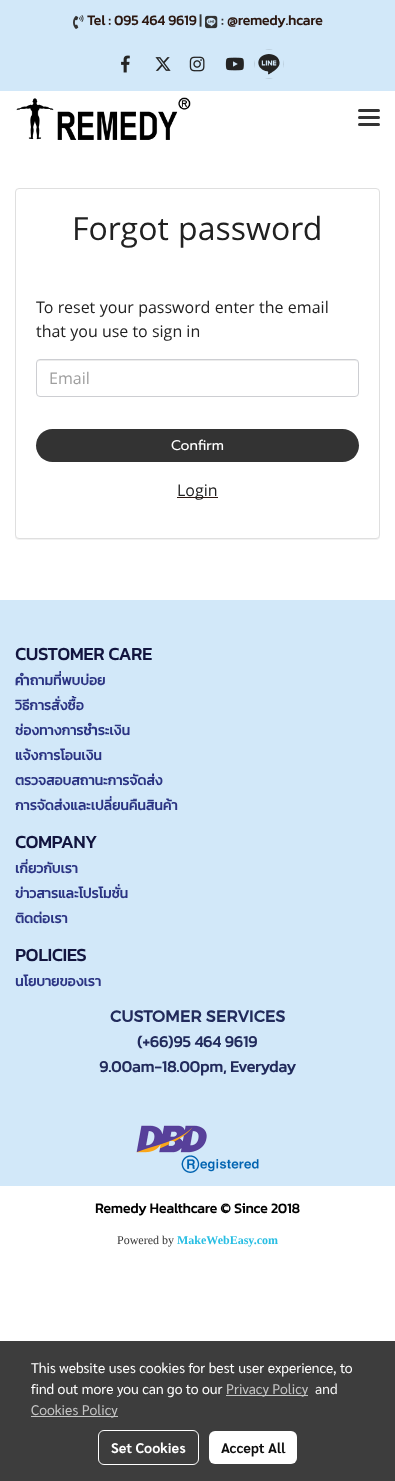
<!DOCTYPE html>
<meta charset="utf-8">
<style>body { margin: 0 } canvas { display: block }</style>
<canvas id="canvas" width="395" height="1481"></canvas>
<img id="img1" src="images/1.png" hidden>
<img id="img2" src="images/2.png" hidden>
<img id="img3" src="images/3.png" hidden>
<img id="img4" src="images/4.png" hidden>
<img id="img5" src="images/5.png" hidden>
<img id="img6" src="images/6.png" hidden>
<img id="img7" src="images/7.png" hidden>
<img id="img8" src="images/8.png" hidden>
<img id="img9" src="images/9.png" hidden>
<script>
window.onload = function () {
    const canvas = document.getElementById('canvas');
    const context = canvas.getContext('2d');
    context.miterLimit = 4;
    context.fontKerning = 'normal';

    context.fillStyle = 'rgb(255, 255, 255)';
    context.fillRect(0, 0, 395, 1481);
    context.fillStyle = 'rgb(61, 61, 61)';
    context.fillRect(0, 1341, 395, 140);
    context.fillStyle = 'rgb(210, 232, 249)';
    context.fillRect(0, 0, 395, 91);
    context.drawImage(document.getElementById('img1'), 73, 15, 11, 14);
    context.drawImage(document.getElementById('img2'), 205, 15, 13, 14);
    context.drawImage(document.getElementById('img3'), 121, 55, 9, 18);
    context.drawImage(document.getElementById('img4'), 155, 57, 16, 14);
    context.drawImage(document.getElementById('img5'), 189, 56, 16, 16);
    context.drawImage(document.getElementById('img6'), 225, 57, 19, 14);
    context.drawImage(document.getElementById('img7'), 254, 49, 30, 30);
    context.drawImage(document.getElementById('img8'), 16, 97, 175, 43);
    context.fillStyle = 'rgb(51, 51, 51)';
    context.beginPath();
    context.roundRect(358, 116, 22, 3, 1.5);
    context.fill();
    context.beginPath();
    context.roundRect(358, 109, 22, 3, 1.5);
    context.fill();
    context.beginPath();
    context.roundRect(358, 123, 22, 3, 1.5);
    context.fill();
    context.fillStyle = 'rgba(0, 0, 0, 0.05)';
    context.filter = 'blur(0.5px)';
    context.beginPath();
    context.roundRect(15, 189, 365, 351, 4);
    context.fill();
    context.filter = 'none';
    context.fillStyle = 'rgb(255, 255, 255)';
    context.beginPath();
    context.roundRect(15.5, 188.5, 364, 350, 3.5);
    context.fill();
    context.strokeStyle = 'rgb(223, 223, 223)';
    context.stroke();
    context.fillStyle = 'rgb(236, 236, 236)';
    context.beginPath();
    context.moveTo(40, 361);
    context.lineTo(355, 361);
    context.bezierCurveTo(357, 361, 358, 362, 358, 364);
    context.lineTo(357, 361);
    context.lineTo(356, 360);
    context.lineTo(40, 360);
    context.bezierCurveTo(38, 360, 37, 362, 37, 364);
    context.bezierCurveTo(37, 362, 38, 361, 40, 361);
    context.closePath();
    context.fill();
    context.beginPath();
    context.roundRect(36.5, 359.5, 322, 37, 3.5);
    context.strokeStyle = 'rgb(205, 206, 210)';
    context.stroke();
    context.fillStyle = 'rgb(51, 51, 51)';
    context.beginPath();
    context.roundRect(36, 429, 323, 33, 16.5);
    context.fill();
    context.fillStyle = 'rgb(44, 24, 17)';
    context.fillRect(177, 497, 41, 1);
    context.fillStyle = 'rgb(210, 232, 249)';
    context.fillRect(0, 600, 395, 586);
    context.drawImage(document.getElementById('img9'), 136, 1125, 123, 48);
    context.fillStyle = 'rgb(197, 197, 197)';
    context.fillRect(226, 1395, 82, 1);
    context.fillRect(31, 1416, 87, 1);
    context.beginPath();
    context.roundRect(98.5, 1430.5, 100, 34, 5.5);
    context.strokeStyle = 'rgb(255, 255, 255)';
    context.stroke();
    context.fillStyle = 'rgb(255, 255, 255)';
    context.beginPath();
    context.roundRect(209, 1431, 88, 33, 6);
    context.fill();
    context.font = 'bold 14px Kanit';
    context.fillStyle = 'rgb(44, 24, 17)';
    context.fillText('Tel : 095 464 9619', 87, 25);
    context.fillStyle = 'rgb(53, 53, 53)';
    context.fillText('|', 199, 25);
    context.fillText(':', 221, 25);
    context.fillStyle = 'rgb(44, 24, 17)';
    context.fillText('@remedy.hcare', 227, 25);
    context.wordSpacing = '1px';
    context.font = '32px Open Sans';
    context.fillStyle = 'rgb(33, 33, 33)';
    context.fillText('Forgot password', 72, 240);
    context.wordSpacing = '0.25px';
    context.font = '16px Open Sans';
    context.fillText('To reset your password enter the email', 36, 313);
    context.wordSpacing = '0px';
    context.fillText('that you use to sign in', 36, 337);
    context.fillStyle = 'rgb(158, 158, 158)';
    context.fillText('Email', 49, 384);
    context.font = '14px Prompt';
    context.fillStyle = 'rgb(255, 255, 255)';
    context.fillText('Confirm', 171, 450);
    context.font = '16px Open Sans';
    context.fillStyle = 'rgb(33, 33, 33)';
    context.fillText('Login', 177, 496);
    context.font = 'bold 18px Kanit';
    context.fillStyle = 'rgb(18, 21, 63)';
    context.fillText('CUSTOMER CARE', 15, 660);
    context.font = 'bold 14px Kanit';
    context.fillStyle = 'rgb(43, 52, 131)';
    context.fillText('คำถามที่พบบ่อย', 15, 685);
    context.fillText('วิธีการสั่งซื้อ', 15, 710);
    context.fillText('ช่องทางการชำระเงิน', 15, 735);
    context.fillText('แจ้งการโอนเงิน', 15, 760);
    context.fillText('ตรวจสอบสถานะการจัดส่ง', 15, 785);
    context.fillText('การจัดส่งและเปลี่ยนคืนสินค้า', 15, 810);
    context.font = 'bold 18px Kanit';
    context.fillStyle = 'rgb(18, 21, 63)';
    context.fillText('COMPANY', 15, 848);
    context.font = 'bold 14px Kanit';
    context.fillStyle = 'rgb(43, 52, 131)';
    context.fillText('เกี่ยวกับเรา', 15, 873);
    context.fillText('ข่าวสารและโปรโมชั่น', 15, 898);
    context.fillText('ติดต่อเรา', 15, 923);
    context.font = 'bold 18px Kanit';
    context.fillStyle = 'rgb(18, 21, 63)';
    context.fillText('POLICIES', 15, 961);
    context.font = 'bold 14px Kanit';
    context.fillStyle = 'rgb(43, 52, 131)';
    context.fillText('นโยบายของเรา', 15, 986);
    context.font = 'bold 16px Montserrat';
    context.fillStyle = 'rgb(34, 43, 92)';
    context.fillText('CUSTOMER SERVICES', 110, 1022);
    context.font = 'bold 16px Kanit';
    context.fillText('(+66)95 464 9619', 137, 1047);
    context.fillText('9.00am-18.00pm, Everyday', 99, 1072);
    context.font = 'bold 14px Kanit';
    context.fillStyle = 'rgb(0, 0, 0)';
    context.fillText('Remedy Healthcare © Since 2018', 95, 1213);
    context.font = '12px Liberation Serif';
    context.fillStyle = 'rgb(53, 53, 53)';
    context.fillText('Powered by', 117, 1244);
    context.font = 'bold 12px Liberation Serif';
    context.fillStyle = 'rgb(40, 190, 227)';
    context.fillText('MakeWebEasy.com', 177, 1244);
    context.font = '14px Sarabun';
    context.fillStyle = 'rgb(255, 255, 255)';
    context.fillText('This website uses cookies for best user experience, to', 31, 1373);
    context.fillText('find out more you can go to our', 31, 1394);
    context.fillStyle = 'rgb(197, 197, 197)';
    context.fillText('Privacy Policy', 226, 1394);
    context.fillStyle = 'rgb(245, 245, 245)';
    context.fillText('and', 315, 1394);
    context.fillStyle = 'rgb(197, 197, 197)';
    context.fillText('Cookies Policy', 31, 1415);
    context.font = 'bold 14px Sarabun';
    context.fillStyle = 'rgb(255, 255, 255)';
    context.fillText('Set Cookies', 111, 1453);
    context.fillStyle = 'rgb(13, 13, 13)';
    context.fillText('Accept All', 221, 1453);
};
</script>
